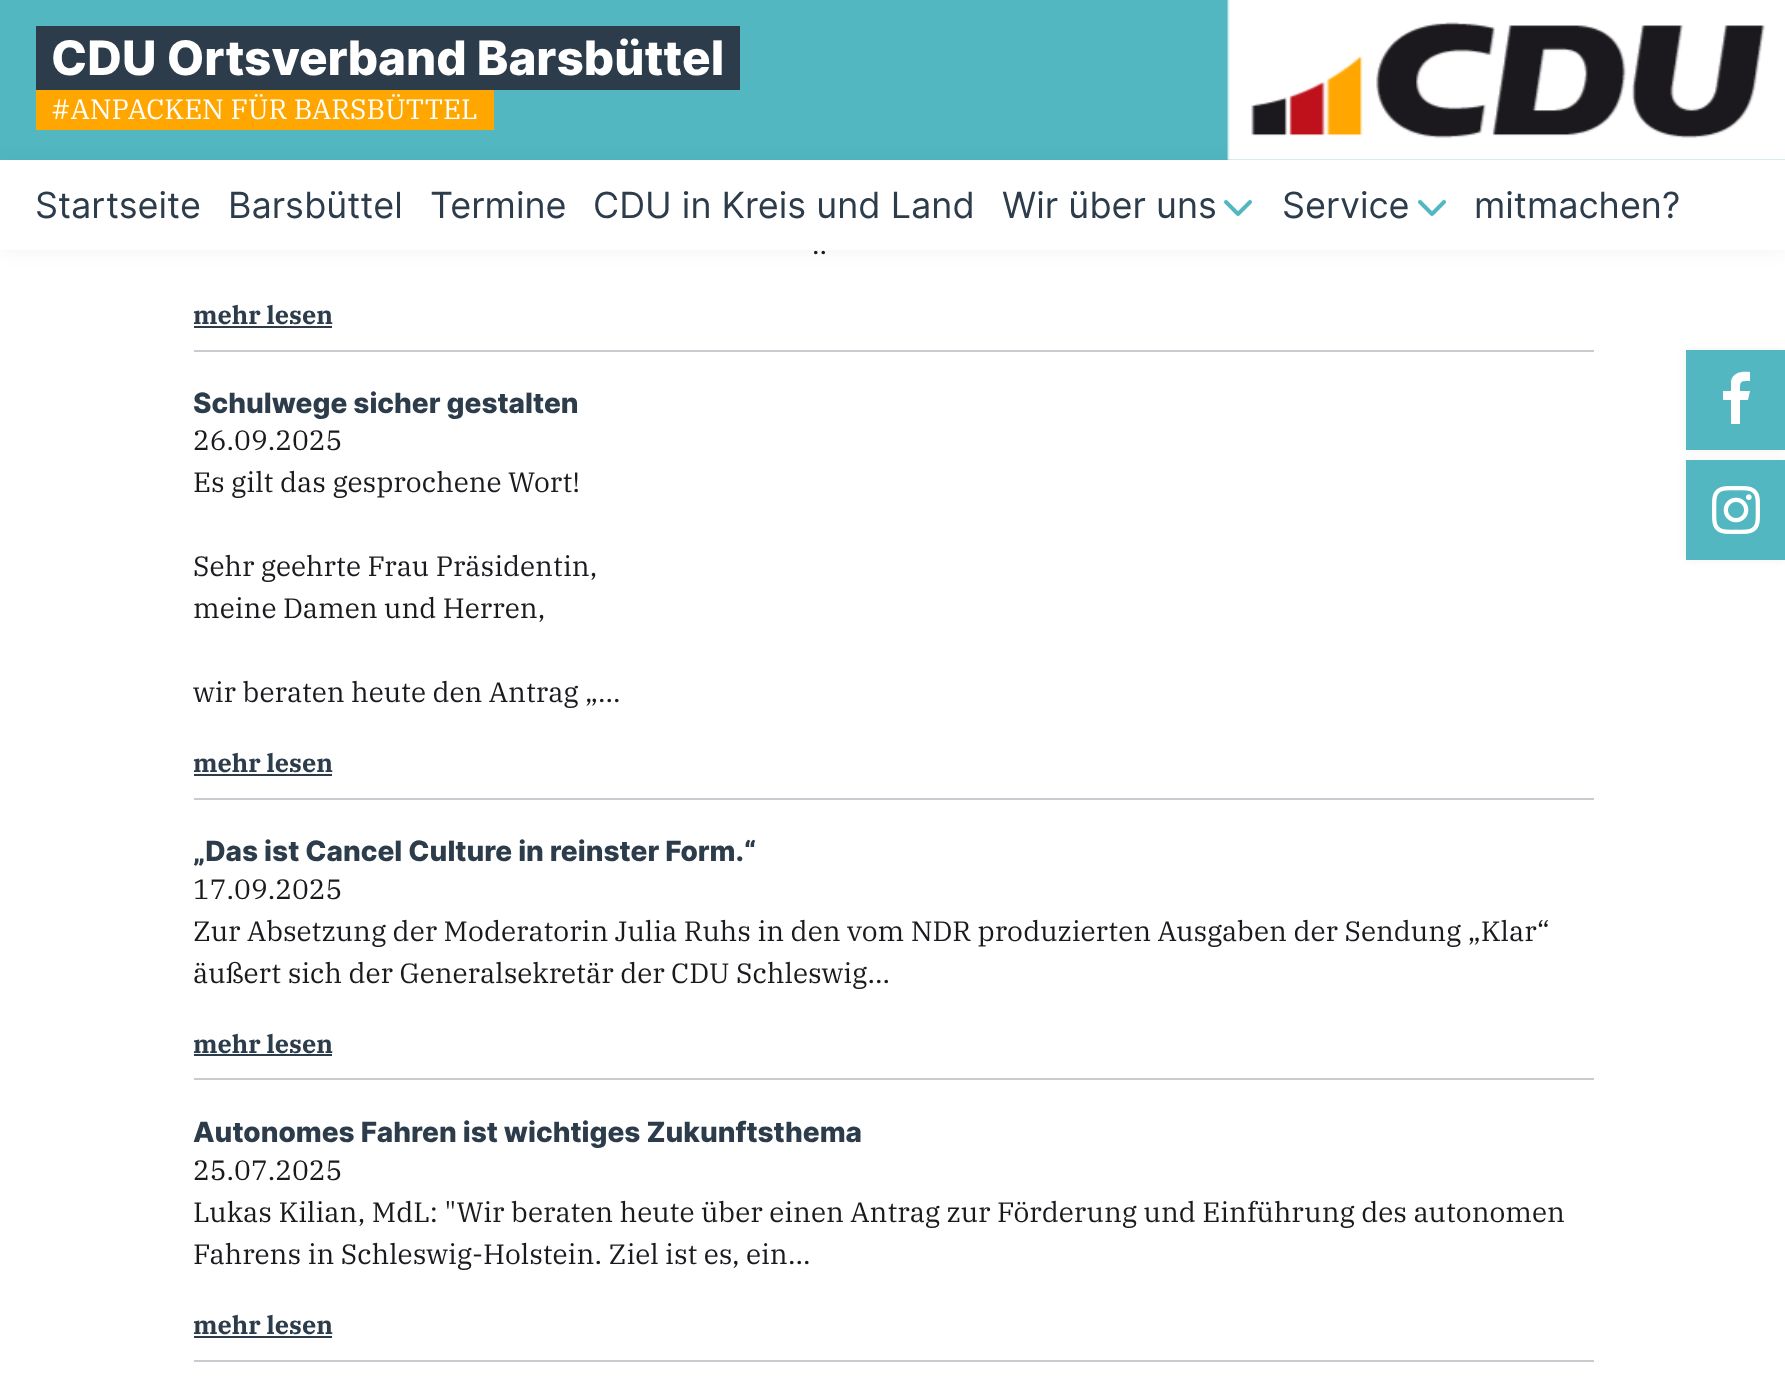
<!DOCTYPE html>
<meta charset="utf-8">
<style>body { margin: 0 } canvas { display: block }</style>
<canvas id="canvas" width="1785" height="1397"></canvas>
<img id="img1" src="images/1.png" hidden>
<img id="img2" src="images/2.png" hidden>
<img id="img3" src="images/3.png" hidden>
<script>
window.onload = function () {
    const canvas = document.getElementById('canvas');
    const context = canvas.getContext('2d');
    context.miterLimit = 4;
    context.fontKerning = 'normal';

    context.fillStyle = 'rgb(255, 255, 255)';
    context.fillRect(0, 0, 1785, 1397);
    context.fillStyle = 'rgb(82, 183, 193)';
    context.fillRect(0, 0, 1785, 160);
    context.fillStyle = 'rgb(45, 60, 75)';
    context.fillRect(36, 26, 704, 64);
    context.fillStyle = 'rgba(0, 0, 0, 0.05)';
    context.filter = 'blur(10px)';
    context.beginPath();
    context.rect(0, 160, 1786, 90);
    context.fill();
    context.filter = 'none';
    context.fillStyle = 'rgb(255, 166, 0)';
    context.fillRect(36, 90, 458, 40);
    context.drawImage(document.getElementById('img1'), 1227, 0, 558, 160);
    context.fillStyle = 'rgb(255, 255, 255)';
    context.fillRect(0, 160, 1785, 90);
    context.drawImage(document.getElementById('img2'), 1224, 200, 28, 16);
    context.drawImage(document.getElementById('img2'), 1418, 200, 28, 16);
    context.fillStyle = 'rgb(201, 203, 208)';
    context.fillRect(194, 350, 1400, 2);
    context.fillStyle = 'rgb(45, 60, 75)';
    context.fillRect(194, 326, 138, 2);
    context.fillStyle = 'rgb(201, 203, 208)';
    context.fillRect(194, 798, 1400, 2);
    context.fillStyle = 'rgb(45, 60, 75)';
    context.fillRect(194, 774, 138, 2);
    context.fillStyle = 'rgb(201, 203, 208)';
    context.fillRect(194, 1078, 1400, 2);
    context.fillStyle = 'rgb(45, 60, 75)';
    context.fillRect(194, 1054, 138, 2);
    context.fillStyle = 'rgb(201, 203, 208)';
    context.fillRect(194, 1360, 1400, 2);
    context.fillStyle = 'rgb(45, 60, 75)';
    context.fillRect(194, 1336, 138, 2);
    context.fillStyle = 'rgba(0, 0, 0, 0.05)';
    context.filter = 'blur(5px)';
    context.beginPath();
    context.rect(1686, 350, 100, 100);
    context.fill();
    context.filter = 'none';
    context.fillStyle = 'rgb(82, 183, 193)';
    context.fillRect(1686, 350, 99, 100);
    context.fillStyle = 'rgb(255, 255, 255)';
    context.beginPath();
    context.moveTo(1750, 372);
    context.lineTo(1750, 381);
    context.bezierCurveTo(1740, 381, 1740, 381, 1740, 391);
    context.lineTo(1750, 391);
    context.lineTo(1748, 400);
    context.lineTo(1740, 400);
    context.lineTo(1740, 424);
    context.lineTo(1731, 424);
    context.lineTo(1731, 400);
    context.lineTo(1723, 400);
    context.lineTo(1723, 391);
    context.lineTo(1731, 391);
    context.lineTo(1731, 381);
    context.bezierCurveTo(1733, 372, 1742, 371, 1750, 372);
    context.closePath();
    context.fill();
    context.fillStyle = 'rgba(0, 0, 0, 0.05)';
    context.filter = 'blur(5px)';
    context.beginPath();
    context.rect(1686, 460, 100, 100);
    context.fill();
    context.filter = 'none';
    context.fillStyle = 'rgb(82, 183, 193)';
    context.fillRect(1686, 460, 99, 100);
    context.drawImage(document.getElementById('img3'), 1712, 486, 48, 48);
    context.font = '800 47.6px Inter';
    context.fillStyle = 'rgb(255, 255, 255)';
    context.fillText('CDU Ortsverband Barsbüttel', 51, 75);
    context.font = '28px IBM Plex Serif';
    context.fillText('#ANPACKEN FÜR BARSBÜTTEL', 51, 119);
    context.font = '36px Inter';
    context.fillStyle = 'rgb(45, 60, 75)';
    context.fillText('Startseite', 35, 218);
    context.fillText('Barsbüttel', 228, 218);
    context.fillText('Termine', 430, 218);
    context.fillText('CDU in Kreis und Land', 593, 218);
    context.fillText('Wir über uns', 1002, 218);
    context.fillText('Service', 1282, 218);
    context.fillText('mitmachen?', 1474, 218);
    context.font = '28px IBM Plex Serif';
    context.fillStyle = 'rgb(27, 25, 29)';
    context.fillText('..', 812, 254);
    context.font = 'bold 25.25px IBM Plex Serif';
    context.fillStyle = 'rgb(45, 60, 75)';
    context.fillText('mehr lesen', 193, 324);
    context.font = '800 28px Inter';
    context.fillText('Schulwege sicher gestalten', 193, 413);
    context.font = '28px IBM Plex Serif';
    context.fillStyle = 'rgb(27, 25, 29)';
    context.fillText('26.09.2025', 193, 450);
    context.fillText('Es gilt das gesprochene Wort!', 193, 492);
    context.fillText('Sehr geehrte Frau Präsidentin,', 193, 576);
    context.fillText('meine Damen und Herren,', 193, 618);
    context.fillText('wir beraten heute den Antrag „...', 193, 702);
    context.font = 'bold 25.25px IBM Plex Serif';
    context.fillStyle = 'rgb(45, 60, 75)';
    context.fillText('mehr lesen', 193, 772);
    context.font = '800 28px Inter';
    context.fillText('„Das ist Cancel Culture in reinster Form.“', 193, 861);
    context.font = '28px IBM Plex Serif';
    context.fillStyle = 'rgb(27, 25, 29)';
    context.fillText('17.09.2025', 193, 899);
    context.fillText('Zur Absetzung der Moderatorin Julia Ruhs in den vom NDR produzierten Ausgaben der Sendung „Klar“', 193, 941);
    context.fillText('äußert sich der Generalsekretär der CDU Schleswig...', 193, 983);
    context.font = 'bold 25.25px IBM Plex Serif';
    context.fillStyle = 'rgb(45, 60, 75)';
    context.fillText('mehr lesen', 193, 1053);
    context.font = '800 28px Inter';
    context.fillText('Autonomes Fahren ist wichtiges Zukunftsthema', 193, 1142);
    context.font = '28px IBM Plex Serif';
    context.fillStyle = 'rgb(27, 25, 29)';
    context.fillText('25.07.2025', 193, 1180);
    context.fillText('Lukas Kilian, MdL: "Wir beraten heute über einen Antrag zur Förderung und Einführung des autonomen', 193, 1222);
    context.fillText('Fahrens in Schleswig-Holstein. Ziel ist es, ein...', 193, 1264);
    context.font = 'bold 25.25px IBM Plex Serif';
    context.fillStyle = 'rgb(45, 60, 75)';
    context.fillText('mehr lesen', 193, 1334);
};
</script>
